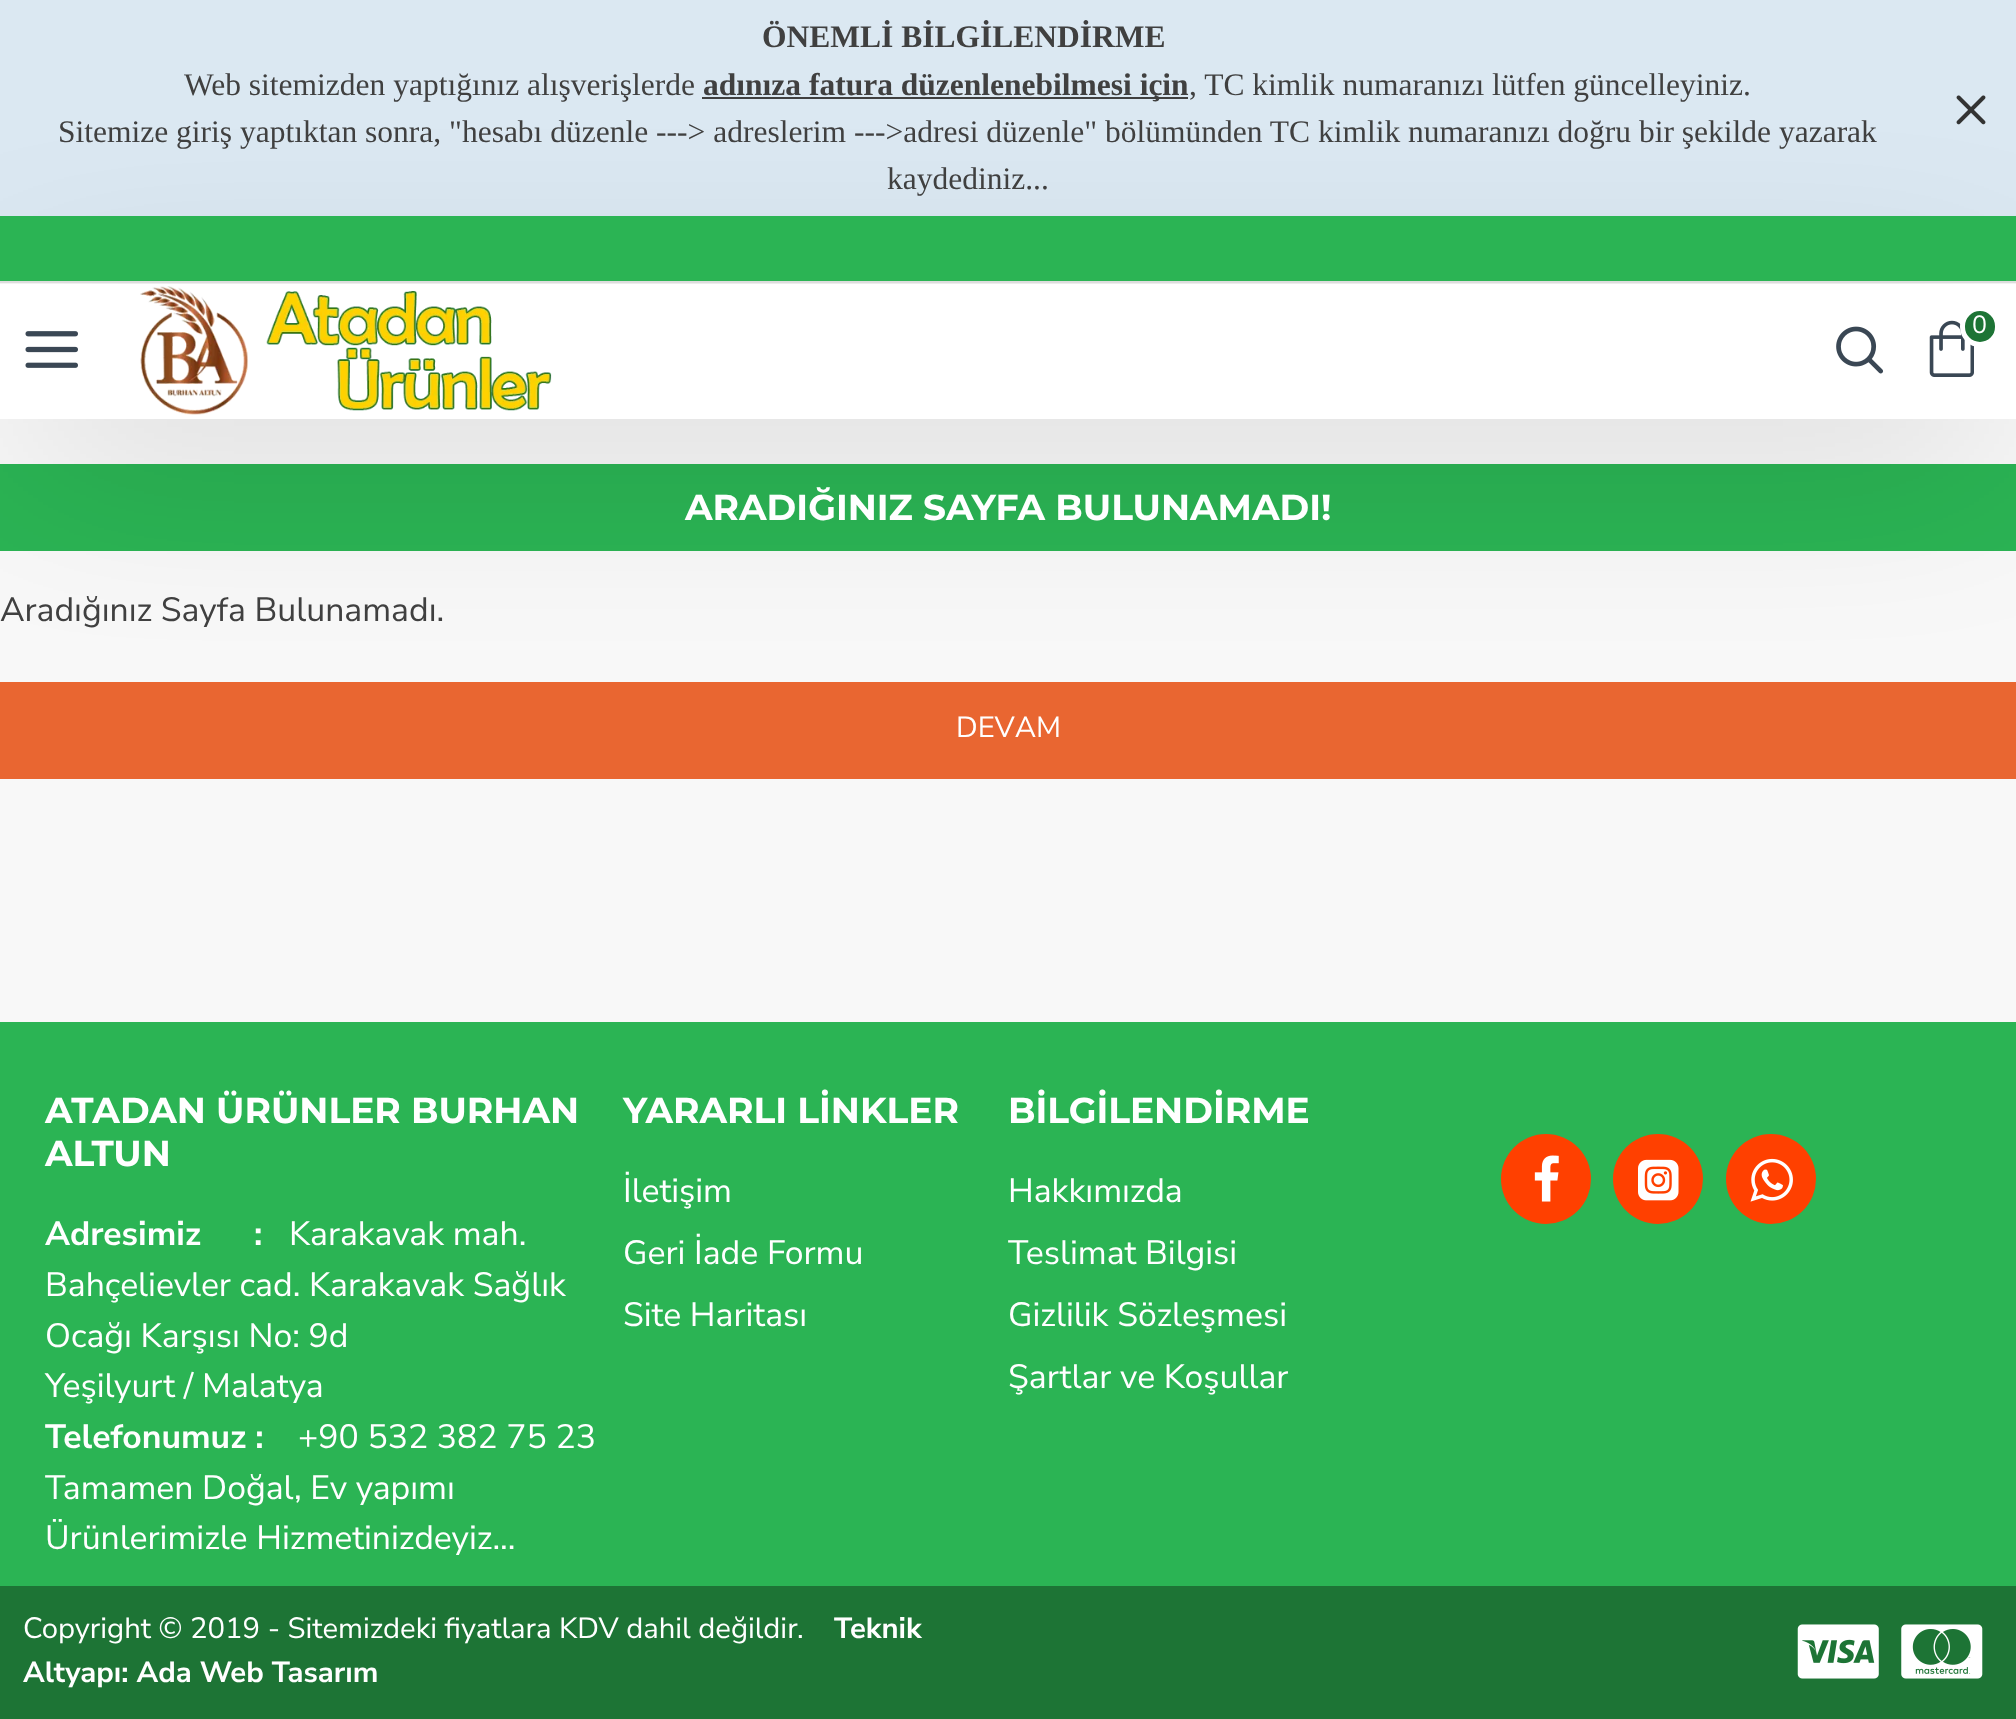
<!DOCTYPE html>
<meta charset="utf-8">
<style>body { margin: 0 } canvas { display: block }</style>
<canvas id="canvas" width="2016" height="1719"></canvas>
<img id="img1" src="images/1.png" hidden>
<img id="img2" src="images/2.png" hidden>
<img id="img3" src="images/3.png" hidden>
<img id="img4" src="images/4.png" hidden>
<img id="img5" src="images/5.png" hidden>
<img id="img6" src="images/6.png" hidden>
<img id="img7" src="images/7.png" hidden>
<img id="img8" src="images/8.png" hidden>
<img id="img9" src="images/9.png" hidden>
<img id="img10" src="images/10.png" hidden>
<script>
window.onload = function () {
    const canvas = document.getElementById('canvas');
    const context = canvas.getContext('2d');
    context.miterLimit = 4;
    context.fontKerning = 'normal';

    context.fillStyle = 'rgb(248, 248, 248)';
    context.fillRect(0, 0, 2016, 1719);
    context.fillStyle = 'rgb(219, 232, 242)';
    context.fillRect(0, 0, 2016, 216);
    context.fillStyle = 'rgb(64, 64, 64)';
    context.fillRect(702, 97, 486, 2);
    context.drawImage(document.getElementById('img1'), 1956, 95, 30, 30);
    context.fillStyle = 'rgb(43, 180, 84)';
    context.fillRect(0, 464, 2016, 87);
    context.fillStyle = 'rgb(233, 102, 49)';
    context.fillRect(0, 682, 2016, 97);
    context.fillStyle = 'rgba(0, 0, 0, 0.2)';
    context.filter = 'blur(101px)';
    context.beginPath();
    context.rect(23, 340, 1971, 90);
    context.fill();
    context.filter = 'none';
    context.fillStyle = 'rgb(43, 180, 84)';
    context.fillRect(0, 216, 2016, 65);
    context.fillStyle = 'rgb(221, 221, 221)';
    context.fillRect(0, 281, 2016, 2);
    context.fillStyle = 'rgb(255, 255, 255)';
    context.fillRect(0, 284, 2016, 135);
    context.drawImage(document.getElementById('img2'), 140, 286, 412, 129);
    context.drawImage(document.getElementById('img3'), 25, 331, 53, 37);
    context.drawImage(document.getElementById('img4'), 1836, 326, 48, 48);
    context.drawImage(document.getElementById('img5'), 1929, 320, 45, 57);
    context.fillStyle = 'rgb(29, 116, 53)';
    context.beginPath();
    context.roundRect(1962.5, 308.5, 35, 36, 17.5);
    context.fill();
    context.strokeStyle = 'rgb(255, 255, 255)';
    context.lineWidth = 5;
    context.stroke();
    context.fillStyle = 'rgb(43, 180, 84)';
    context.fillRect(0, 1022, 2016, 564);
    context.fillStyle = 'rgb(255, 64, 0)';
    context.beginPath();
    context.arc(1546, 1179, 45, 0, 2 * Math.PI);
    context.fill();
    context.drawImage(document.getElementById('img6'), 1534, 1155, 25, 47);
    context.beginPath();
    context.arc(1658, 1179, 45, 0, 2 * Math.PI);
    context.fill();
    context.drawImage(document.getElementById('img7'), 1638, 1159, 41, 42);
    context.beginPath();
    context.arc(1771, 1179, 45, 0, 2 * Math.PI);
    context.fill();
    context.drawImage(document.getElementById('img8'), 1750, 1158, 43, 44);
    context.fillStyle = 'rgb(29, 116, 53)';
    context.fillRect(0, 1586, 2016, 133);
    context.drawImage(document.getElementById('img9'), 1797, 1624, 82, 55);
    context.drawImage(document.getElementById('img10'), 1901, 1624, 82, 55);
    context.font = 'bold 31.5px Liberation Serif';
    context.fillStyle = 'rgb(64, 64, 64)';
    context.fillText('ÖNEMLİ BİLGİLENDİRME', 762, 47);
    context.font = '31.5px Liberation Serif';
    context.fillText('Web sitemizden yaptığınız alışverişlerde', 184, 95);
    context.font = 'bold 31.5px Liberation Serif';
    context.fillText('adınıza fatura düzenlenebilmesi için', 703, 95);
    context.font = '31.5px Liberation Serif';
    context.fillText(', TC kimlik numaranızı lütfen güncelleyiniz.', 1189, 95);
    context.fillText('Sitemize giriş yaptıktan sonra, "hesabı düzenle ---> adreslerim --->adresi düzenle" bölümünden TC kimlik numaranızı doğru bir şekilde yazarak', 58, 142);
    context.fillText('kaydediniz...', 887, 189);
    context.font = '25px Nunito Sans';
    context.fillStyle = 'rgb(255, 255, 255)';
    context.fillText('0', 1972, 333);
    context.font = 'bold 36px Montserrat';
    context.fillText('ARADIĞINIZ SAYFA BULUNAMADI!', 685, 520);
    context.font = '33.75px Nunito Sans';
    context.fillStyle = 'rgb(64, 64, 64)';
    context.fillText('Aradığınız Sayfa Bulunamadı.', 0, 621);
    context.font = '29.25px Nunito Sans';
    context.fillStyle = 'rgb(255, 255, 255)';
    context.fillText('DEVAM', 956, 737);
    context.font = 'bold 36px Montserrat';
    context.fillText('ATADAN ÜRÜNLER BURHAN', 45, 1123);
    context.fillText('ALTUN', 45, 1166);
    context.font = 'bold 33.75px Nunito Sans';
    context.fillText('Adresimiz', 45, 1245);
    context.fillText(':', 254, 1245);
    context.font = '33.75px Nunito Sans';
    context.fillText('Karakavak mah.', 289, 1245);
    context.fillText('Bahçelievler cad. Karakavak Sağlık', 45, 1296);
    context.fillText('Ocağı Karşısı No: 9d', 45, 1347);
    context.fillText('Yeşilyurt / Malatya', 45, 1397);
    context.font = 'bold 33.75px Nunito Sans';
    context.fillText('Telefonumuz :', 45, 1448);
    context.font = '33.75px Nunito Sans';
    context.fillText('+90 532 382 75 23', 298, 1448);
    context.fillText('Tamamen Doğal, Ev yapımı', 45, 1499);
    context.fillText('Ürünlerimizle Hizmetinizdeyiz...', 45, 1549);
    context.font = 'bold 36px Montserrat';
    context.fillText('YARARLI LİNKLER', 623, 1123);
    context.font = '33.75px Nunito Sans';
    context.fillText('İletişim', 623, 1202);
    context.fillText('Geri İade Formu', 623, 1264);
    context.fillText('Site Haritası', 623, 1326);
    context.font = 'bold 36px Montserrat';
    context.fillText('BİLGİLENDİRME', 1008, 1123);
    context.font = '33.75px Nunito Sans';
    context.fillText('Hakkımızda', 1008, 1202);
    context.fillText('Teslimat Bilgisi', 1008, 1264);
    context.fillText('Gizlilik Sözleşmesi', 1008, 1326);
    context.fillText('Şartlar ve Koşullar', 1008, 1388);
    context.font = '29.25px Nunito Sans';
    context.fillText('Copyright © 2019 - Sitemizdeki fiyatlara KDV dahil değildir.', 23, 1638);
    context.font = 'bold 29.25px Nunito Sans';
    context.fillText('Teknik', 834, 1638);
    context.fillText('Altyapı: Ada Web Tasarım', 23, 1682);
};
</script>
